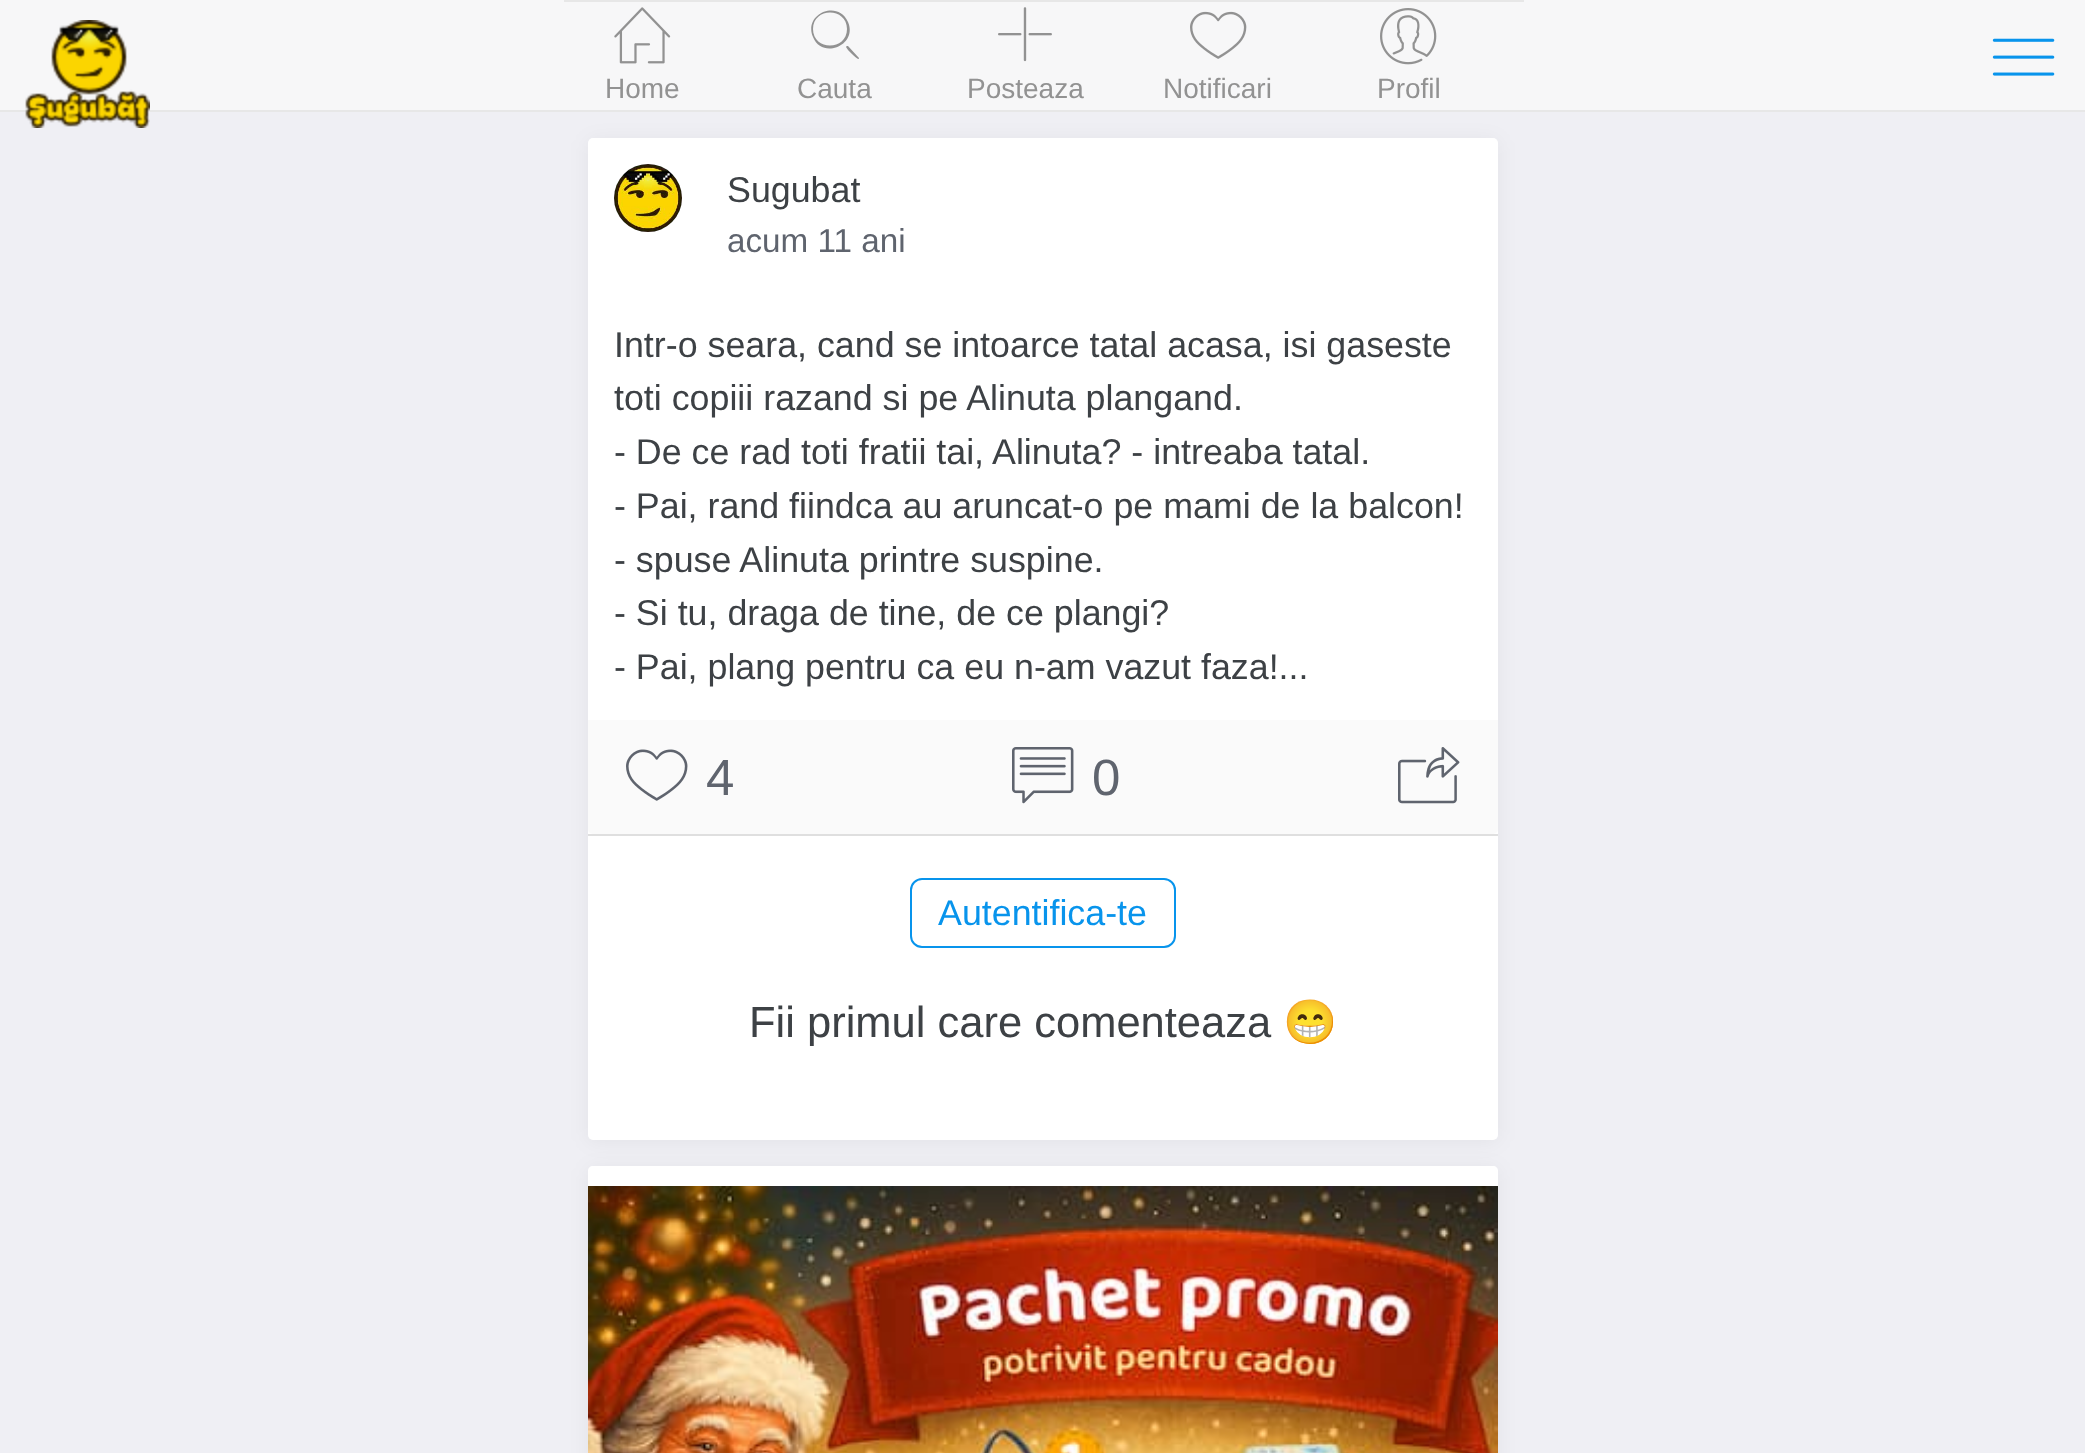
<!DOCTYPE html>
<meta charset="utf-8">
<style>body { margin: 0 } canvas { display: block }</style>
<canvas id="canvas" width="2085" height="1453"></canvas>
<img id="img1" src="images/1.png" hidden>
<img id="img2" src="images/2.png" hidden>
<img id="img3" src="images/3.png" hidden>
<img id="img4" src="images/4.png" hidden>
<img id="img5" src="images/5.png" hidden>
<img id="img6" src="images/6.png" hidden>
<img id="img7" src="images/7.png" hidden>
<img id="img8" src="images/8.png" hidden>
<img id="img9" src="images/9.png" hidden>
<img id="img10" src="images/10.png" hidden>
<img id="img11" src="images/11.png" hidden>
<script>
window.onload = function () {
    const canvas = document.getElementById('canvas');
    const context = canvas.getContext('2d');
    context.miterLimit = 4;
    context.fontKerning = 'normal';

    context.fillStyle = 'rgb(239, 239, 244)';
    context.fillRect(0, 0, 2085, 1453);
    context.fillStyle = 'rgba(0, 0, 0, 0.05)';
    context.filter = 'blur(10px)';
    context.beginPath();
    context.roundRect(588, 140, 910, 1002, 5);
    context.fill();
    context.filter = 'none';
    context.fillStyle = 'rgb(247, 247, 248)';
    context.fillRect(0, 0, 2085, 110);
    context.fillStyle = 'rgb(231, 231, 231)';
    context.fillRect(0, 110, 2085, 2);
    context.drawImage(document.getElementById('img1'), 25, 20, 125, 108);
    context.drawImage(document.getElementById('img2'), 1992, 38, 63, 38);
    context.fillRect(564, 0, 960, 2);
    context.drawImage(document.getElementById('img3'), 614, 7, 57, 57);
    context.fillStyle = 'rgb(146, 146, 146)';
    context.beginPath();
    context.moveTo(848, 22);
    context.bezierCurveTo(838, -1, 803, 14, 813, 37);
    context.bezierCurveTo(822, 60, 858, 45, 848, 22);
    context.closePath();
    context.moveTo(847, 29);
    context.bezierCurveTo(847, 51, 813, 51, 813, 29);
    context.bezierCurveTo(813, 7, 847, 7, 847, 29);
    context.closePath();
    context.moveTo(859, 58);
    context.bezierCurveTo(859, 61, 855, 57, 848, 50);
    context.lineTo(846, 47);
    context.bezierCurveTo(846, 46, 847, 46, 848, 46);
    context.closePath();
    context.fill();
    context.drawImage(document.getElementById('img4'), 998, 7, 54, 55);
    context.drawImage(document.getElementById('img5'), 1190, 11, 57, 48);
    context.drawImage(document.getElementById('img6'), 1380, 8, 57, 57);
    context.fillStyle = 'rgb(255, 255, 255)';
    context.beginPath();
    context.roundRect(588, 138, 910, 1002, 5);
    context.fill();
    context.drawImage(document.getElementById('img7'), 614, 164, 68, 68);
    context.fillStyle = 'rgb(250, 250, 250)';
    context.beginPath();
    context.roundRect(588, 720, 910, 114, [0, 0, 5, 5]);
    context.fill();
    context.drawImage(document.getElementById('img8'), 626, 749, 62, 52);
    context.drawImage(document.getElementById('img9'), 1012, 747, 62, 57);
    context.drawImage(document.getElementById('img10'), 1398, 747, 62, 57);
    context.fillStyle = 'rgb(223, 223, 223)';
    context.fillRect(588, 834, 910, 2);
    context.beginPath();
    context.roundRect(911, 879, 264, 68, 11);
    context.strokeStyle = 'rgb(8, 148, 236)';
    context.lineWidth = 2;
    context.stroke();
    context.fillStyle = 'rgba(0, 0, 0, 0.05)';
    context.filter = 'blur(10px)';
    context.beginPath();
    context.roundRect(588, 1168, 910, 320, 5);
    context.fill();
    context.filter = 'none';
    context.fillStyle = 'rgb(255, 255, 255)';
    context.beginPath();
    context.moveTo(593, 1166);
    context.lineTo(1493, 1166);
    context.bezierCurveTo(1496, 1166, 1498, 1168, 1498, 1171);
    context.lineTo(1498, 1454);
    context.lineTo(588, 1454);
    context.lineTo(588, 1171);
    context.bezierCurveTo(588, 1168, 590, 1166, 593, 1166);
    context.closePath();
    context.fill();
    context.drawImage(document.getElementById('img11'), 588, 1186, 910, 267);
    context.font = '28px Liberation Sans';
    context.fillStyle = 'rgb(146, 146, 146)';
    context.fillText('Home', 605, 98);
    context.fillText('Cauta', 797, 98);
    context.fillText('Posteaza', 967, 98);
    context.fillText('Notificari', 1163, 98);
    context.fillText('Profil', 1377, 98);
    context.font = '35.8px Liberation Sans';
    context.fillStyle = 'rgb(61, 65, 69)';
    context.fillText('Sugubat', 727, 202);
    context.font = '33.25px Liberation Sans';
    context.fillStyle = 'rgb(95, 100, 110)';
    context.fillText('acum 11 ani', 727, 252);
    context.font = '35.8px Liberation Sans';
    context.fillStyle = 'rgb(61, 65, 69)';
    context.fillText('Intr-o seara, cand se intoarce tatal acasa, isi gaseste', 614, 357);
    context.fillText('toti copiii razand si pe Alinuta plangand.', 614, 410);
    context.fillText('- De ce rad toti fratii tai, Alinuta? - intreaba tatal.', 614, 464);
    context.fillText('- Pai, rand fiindca au aruncat-o pe mami de la balcon!', 614, 518);
    context.fillText('- spuse Alinuta printre suspine.', 614, 572);
    context.fillText('- Si tu, draga de tine, de ce plangi?', 614, 625);
    context.fillText('- Pai, plang pentru ca eu n-am vazut faza!...', 614, 679);
    context.font = '51px Liberation Sans';
    context.fillStyle = 'rgb(95, 100, 110)';
    context.fillText('4', 706, 795);
    context.fillText('0', 1092, 795);
    context.font = '35.8px Liberation Sans';
    context.fillStyle = 'rgb(8, 148, 236)';
    context.fillText('Autentifica-te', 938, 925);
    context.font = '43.5px Liberation Sans';
    context.fillStyle = 'rgb(61, 65, 69)';
    context.fillText('Fii primul care comenteaza', 749, 1037);
    context.font = '43.5px Noto Color Emoji';
    context.fillText('😁', 1283, 1037);
};
</script>
